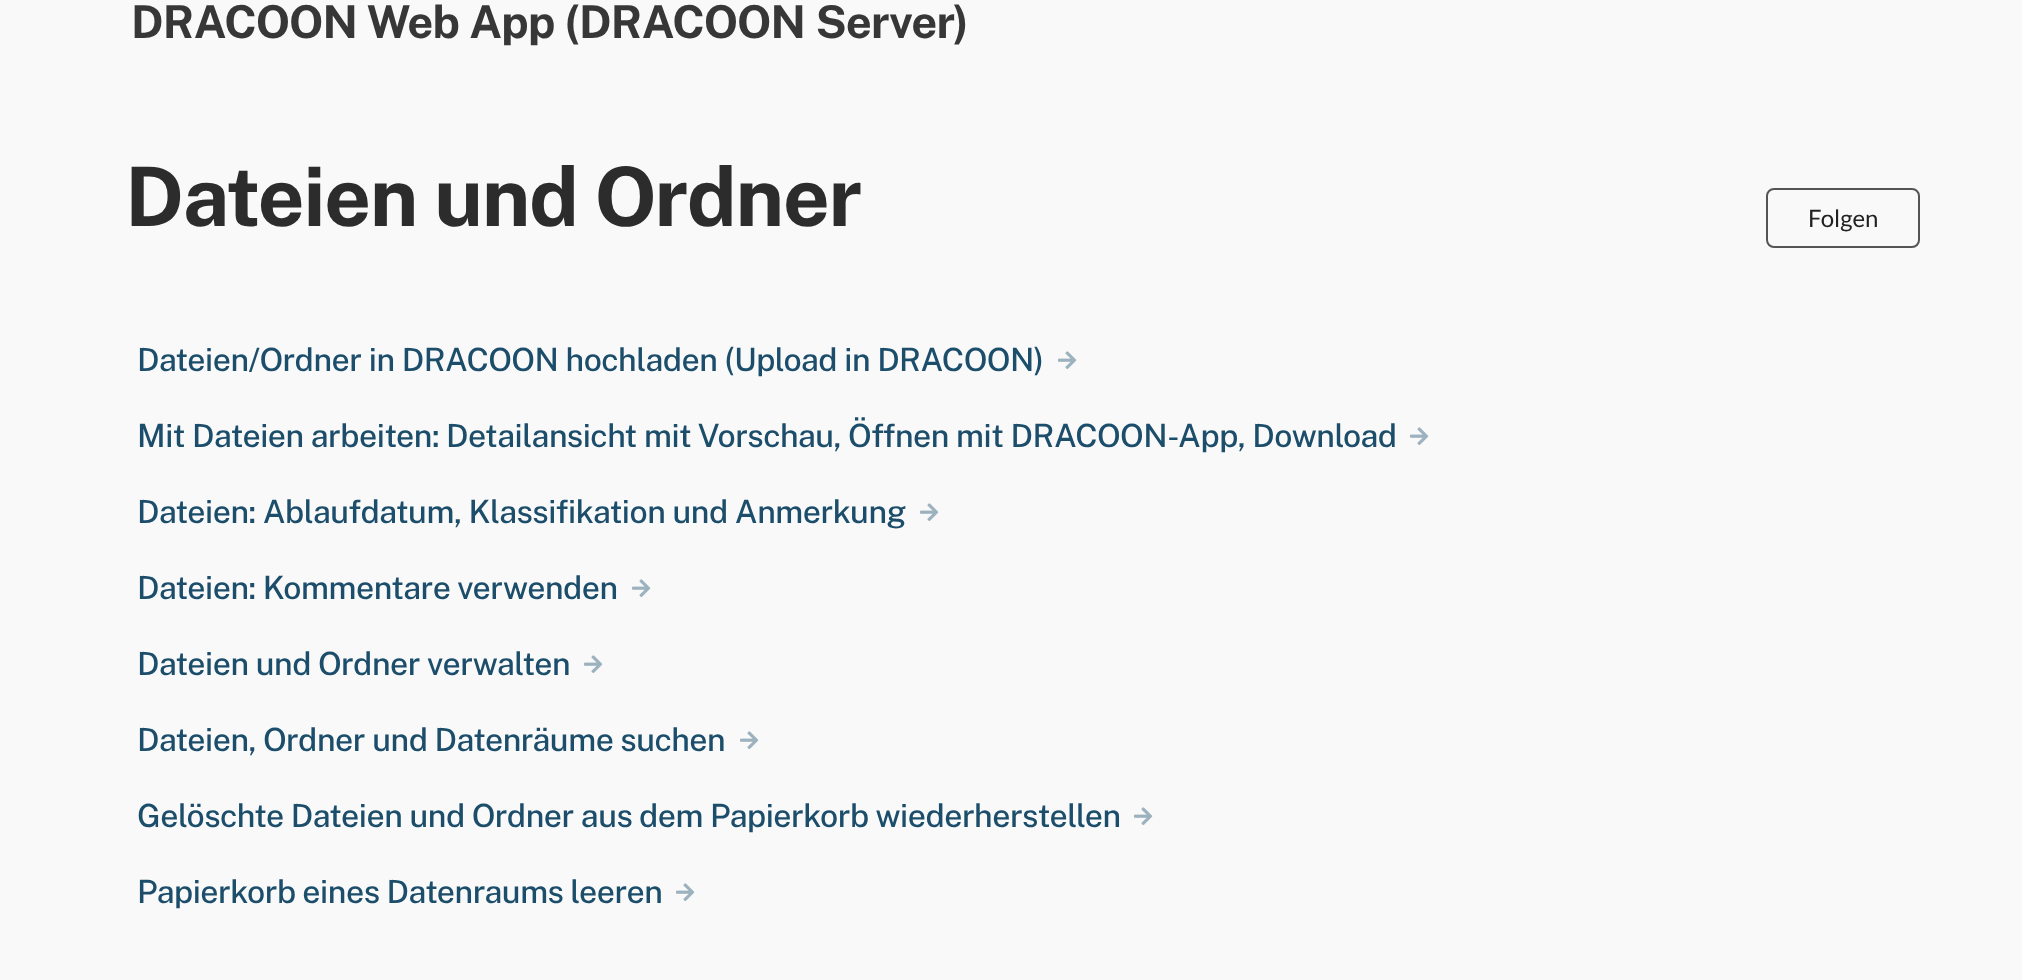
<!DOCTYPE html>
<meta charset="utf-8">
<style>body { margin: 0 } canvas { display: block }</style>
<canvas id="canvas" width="2022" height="980"></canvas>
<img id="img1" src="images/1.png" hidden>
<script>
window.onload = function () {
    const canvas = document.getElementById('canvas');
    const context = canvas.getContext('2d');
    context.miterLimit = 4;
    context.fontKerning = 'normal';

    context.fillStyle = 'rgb(249, 249, 249)';
    context.fillRect(0, 0, 2022, 980);
    context.beginPath();
    context.roundRect(1767, 189, 152, 58, 7);
    context.strokeStyle = 'rgb(85, 85, 85)';
    context.lineWidth = 2;
    context.stroke();
    context.drawImage(document.getElementById('img1'), 1058, 351, 19, 18);
    context.drawImage(document.getElementById('img1'), 1410, 427, 19, 18);
    context.drawImage(document.getElementById('img1'), 920, 503, 19, 18);
    context.drawImage(document.getElementById('img1'), 632, 579, 19, 18);
    context.drawImage(document.getElementById('img1'), 584, 655, 19, 18);
    context.drawImage(document.getElementById('img1'), 740, 731, 19, 18);
    context.drawImage(document.getElementById('img1'), 1134, 807, 19, 18);
    context.drawImage(document.getElementById('img1'), 676, 883, 19, 18);
    context.letterSpacing = '-0.85px';
    context.wordSpacing = '1px';
    context.font = 'bold 45.25px Public Sans';
    context.fillStyle = 'rgb(55, 55, 55)';
    context.fillText('DRACOON Web App (DRACOON Server)', 131, 38);
    context.letterSpacing = '-1.4px';
    context.wordSpacing = '0px';
    context.font = 'bold 82px Public Sans';
    context.fillStyle = 'rgb(44, 44, 44)';
    context.fillText('Dateien und Ordner', 125, 226);
    context.letterSpacing = '0px';
    context.font = '24px Lato';
    context.fillStyle = 'rgb(34, 34, 34)';
    context.fillText('Folgen', 1808, 227);
    context.letterSpacing = '-0.48px';
    context.font = '500 32px Public Sans';
    context.fillStyle = 'rgb(28, 78, 107)';
    context.fillText('Dateien/Ordner in DRACOON hochladen (Upload in DRACOON)', 137, 371);
    context.fillText('Mit Dateien arbeiten: Detailansicht mit Vorschau, Öffnen mit DRACOON-App, Download', 137, 447);
    context.fillText('Dateien: Ablaufdatum, Klassifikation und Anmerkung', 137, 523);
    context.fillText('Dateien: Kommentare verwenden', 137, 599);
    context.fillText('Dateien und Ordner verwalten', 137, 675);
    context.fillText('Dateien, Ordner und Datenräume suchen', 137, 751);
    context.fillText('Gelöschte Dateien und Ordner aus dem Papierkorb wiederherstellen', 137, 827);
    context.fillText('Papierkorb eines Datenraums leeren', 137, 903);
};
</script>
